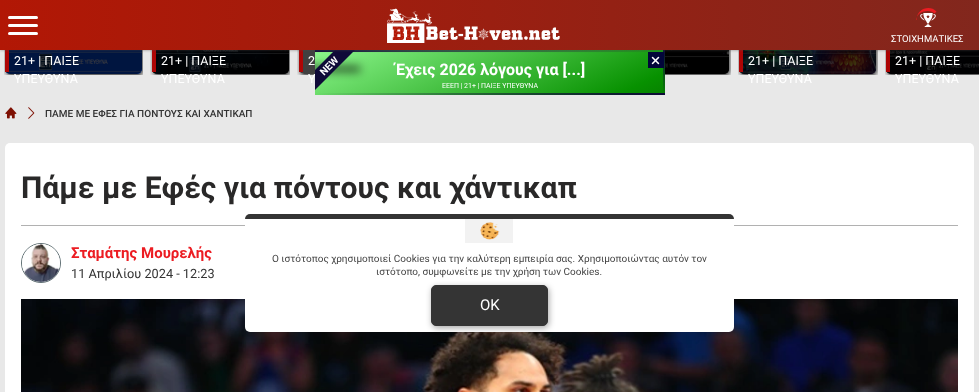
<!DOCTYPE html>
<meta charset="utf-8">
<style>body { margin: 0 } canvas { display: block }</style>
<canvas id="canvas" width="979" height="392"></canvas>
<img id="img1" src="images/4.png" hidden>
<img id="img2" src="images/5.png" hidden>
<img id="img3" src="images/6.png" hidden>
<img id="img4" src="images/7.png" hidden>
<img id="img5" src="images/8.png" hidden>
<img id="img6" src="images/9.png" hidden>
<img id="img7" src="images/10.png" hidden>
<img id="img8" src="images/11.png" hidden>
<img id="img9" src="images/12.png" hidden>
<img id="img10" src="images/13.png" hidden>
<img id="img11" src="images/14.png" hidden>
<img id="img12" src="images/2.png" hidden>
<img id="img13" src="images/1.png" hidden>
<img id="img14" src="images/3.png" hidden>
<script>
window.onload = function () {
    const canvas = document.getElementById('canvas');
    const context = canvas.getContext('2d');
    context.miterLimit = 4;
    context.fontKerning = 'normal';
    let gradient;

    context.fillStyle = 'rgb(232, 232, 232)';
    context.fillRect(0, 0, 979, 392);
    context.drawImage(document.getElementById('img1'), 4, 50, 139, 25);
    context.fillStyle = 'rgba(0, 0, 0, 0.75)';
    context.beginPath();
    context.roundRect(5, 29, 137, 45, [0, 0, 5, 5]);
    context.fill();
    context.drawImage(document.getElementById('img2'), 150, 50, 140, 25);
    context.beginPath();
    context.roundRect(152, 29, 137, 45, [0, 0, 5, 5]);
    context.fill();
    context.drawImage(document.getElementById('img3'), 297, 50, 18, 25);
    context.beginPath();
    context.roundRect(299, 29, 137, 45, [0, 0, 5, 5]);
    context.fill();
    context.drawImage(document.getElementById('img4'), 665, 50, 66, 25);
    context.beginPath();
    context.roundRect(592, 29, 137, 45, [0, 0, 5, 5]);
    context.fill();
    context.drawImage(document.getElementById('img5'), 738, 50, 140, 25);
    context.beginPath();
    context.roundRect(739, 29, 137, 45, [0, 0, 5, 5]);
    context.fill();
    context.drawImage(document.getElementById('img6'), 885, 50, 94, 25);
    context.beginPath();
    context.roundRect(886, 29, 93, 45, [0, 0, 0, 5]);
    context.fill();
    gradient = context.createLinearGradient(0, 25, 979, 25);
    gradient.addColorStop(0, 'rgb(178, 23, 5)');
    gradient.addColorStop(1, 'rgb(130, 39, 29)');
    context.fillStyle = gradient;
    context.fillRect(0, 0, 979, 50);
    context.fillStyle = 'rgb(173, 5, 5)';
    context.fillRect(5, 50, 4, 22);
    context.fillRect(152, 50, 4, 22);
    context.fillRect(299, 50, 4, 22);
    context.fillRect(739, 50, 4, 22);
    context.fillRect(886, 50, 4, 22);
    context.drawImage(document.getElementById('img7'), 5, 107, 12, 12);
    context.drawImage(document.getElementById('img8'), 28, 107, 7, 12);
    context.fillStyle = 'rgb(255, 255, 255)';
    context.beginPath();
    context.roundRect(5, 143, 969, 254, 5);
    context.fill();
    context.fillStyle = 'rgb(177, 177, 177)';
    context.fillRect(21, 225, 937, 1);
    context.beginPath();
    context.arc(41, 263, 19.5, 0, 2 * Math.PI);
    context.strokeStyle = 'rgb(95, 111, 115)';
    context.stroke();
    context.drawImage(document.getElementById('img9'), 22, 244, 38, 38);
    context.drawImage(document.getElementById('img10'), 21, 299, 937, 93);
    context.fillStyle = 'rgb(255, 255, 255)';
    context.beginPath();
    context.roundRect(245, 214, 489, 118, 5);
    context.fill();
    context.fillStyle = 'rgb(52, 52, 52)';
    context.beginPath();
    context.roundRect(245, 214, 489, 5, [5, 5, 0, 0]);
    context.fill();
    context.fillStyle = 'rgba(0, 0, 0, 0.05)';
    context.fillRect(465, 219, 48, 24);
    context.drawImage(document.getElementById('img11'), 480, 222, 20, 18);
    context.fillStyle = 'rgba(0, 0, 0, 0.35)';
    context.filter = 'blur(3px)';
    context.beginPath();
    context.roundRect(432, 287, 117, 41, 5);
    context.fill();
    context.filter = 'none';
    context.fillStyle = 'rgb(52, 52, 52)';
    context.beginPath();
    context.roundRect(431.5, 285.5, 116, 40, 4.5);
    context.fill();
    context.strokeStyle = 'rgb(52, 52, 52)';
    context.stroke();
    context.font = '12.5px Roboto';
    context.fillStyle = 'rgb(255, 255, 255)';
    context.fillText('21+ | ΠΑΙΞΕ', 14, 65);
    context.fillText('ΥΠΕΥΘΥΝΑ', 14, 83);
    context.fillText('21+ | ΠΑΙΞΕ', 161, 65);
    context.fillText('ΥΠΕΥΘΥΝΑ', 161, 83);
    context.fillText('2', 308, 65);
    context.fillText('Υ', 308, 83);
    gradient = context.createLinearGradient(594, -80, 736, 225);
    gradient.addColorStop(0, 'rgb(140, 245, 140)');
    gradient.addColorStop(0.5, 'rgb(7, 145, 0)');
    gradient.addColorStop(1, 'rgb(2, 10, 2)');
    context.fillStyle = gradient;
    context.fillRect(315, 50, 350, 45);
    context.save();
    context.beginPath();
    context.rect(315, 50, 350, 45);
    context.clip();
    context.fillStyle = 'rgb(0, 0, 0)';
    context.filter = 'blur(5px)';
    context.beginPath();
    context.rect(299, 67, 61, 4);
    context.fill();
    context.filter = 'none';
    context.restore();
    context.save();
    context.beginPath();
    context.rect(315, 50, 350, 45);
    context.clip();
    context.fillStyle = 'rgb(15, 10, 56)';
    context.beginPath();
    context.moveTo(299, 86);
    context.lineTo(349, 36);
    context.lineTo(359, 46);
    context.lineTo(309, 96);
    context.closePath();
    context.fill();
    context.restore();
    gradient = context.createLinearGradient(665, 51, 315, 51);
    gradient.addColorStop(0, 'rgba(15, 10, 56, 0)');
    gradient.addColorStop(1, 'rgb(15, 10, 56)');
    context.fillStyle = gradient;
    context.fillRect(315, 50, 350, 2);
    gradient = context.createLinearGradient(664, 95, 664, 50);
    gradient.addColorStop(0, 'rgba(15, 10, 56, 0)');
    gradient.addColorStop(1, 'rgb(15, 10, 56)');
    context.fillStyle = gradient;
    context.fillRect(663, 50, 2, 45);
    context.fillStyle = 'rgb(2, 5, 58)';
    context.fillRect(648, 52, 16, 16);
    context.save();
    context.beginPath();
    context.rect(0, 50, 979, 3);
    context.clip();
    context.fillStyle = 'rgba(81, 78, 79, 0.6)';
    context.filter = 'blur(1.5px)';
    context.beginPath();
    context.rect(0, 0, 979, 50);
    context.fill();
    context.filter = 'none';
    context.restore();
    context.fillStyle = 'rgb(236, 28, 34)';
    context.beginPath();
    context.moveTo(928, 11);
    context.bezierCurveTo(920, 11, 916.5, 15.5, 916, 20);
    context.lineTo(916.5, 20);
    context.bezierCurveTo(916.5, 9, 929.5, 4, 936.5, 11.5);
    context.lineTo(934.5, 13.5);
    context.bezierCurveTo(933, 12, 931, 11, 928, 11);
    context.closePath();
    context.fill();
    context.drawImage(document.getElementById('img12'), 920, 13, 16, 14);
    context.font = '9.5px Roboto';
    context.fillStyle = 'rgb(255, 255, 255)';
    context.fillText('ΣΤΟΙΧΗΜΑΤΙΚΕΣ', 891, 42);
    context.drawImage(document.getElementById('img13'), 387, 8, 173, 35);
    context.beginPath();
    context.roundRect(8, 32, 30, 3, 1.5);
    context.fill();
    context.beginPath();
    context.roundRect(8, 16, 30, 3, 1.5);
    context.fill();
    context.beginPath();
    context.roundRect(8, 24, 30, 3, 1.5);
    context.fill();
    context.drawImage(document.getElementById('img14'), 651, 56, 9, 9);
    context.font = '7px Roboto';
    context.fillText('ΕΕΕΠ | 21+ | ΠΑΙΞΕ ΥΠΕΥΘΥΝΑ', 442, 88);
    gradient = context.createLinearGradient(315, 94, 665, 94);
    gradient.addColorStop(0, 'rgba(15, 10, 56, 0)');
    gradient.addColorStop(1, 'rgb(15, 10, 56)');
    context.fillStyle = gradient;
    context.fillRect(315, 93, 350, 2);
    context.font = 'bold 16px Roboto';
    context.fillStyle = 'rgb(255, 255, 255)';
    context.fillText('Έχεις 2026 λόγους για [...]', 396, 75);
    context.font = 'bold 10px Roboto';
    context.save();
    context.translate(324, 76);
    context.rotate(-45 * Math.PI / 180);
    context.fillText('NEW', 0, 0);
    context.restore();
    context.font = '12.5px Roboto';
    context.fillText('21+ | ΠΑΙΞΕ', 748, 65);
    context.fillText('ΥΠΕΥΘΥΝΑ', 748, 83);
    context.fillText('21+ | ΠΑΙΞΕ', 895, 65);
    context.fillText('ΥΠΕΥΘΥΝΑ', 895, 83);
    context.font = '500 10px Roboto';
    context.fillStyle = 'rgb(51, 51, 51)';
    context.fillText('ΠΑΜΕ ΜΕ ΕΦΕΣ ΓΙΑ ΠΟΝΤΟΥΣ ΚΑΙ ΧΑΝΤΙΚΑΠ', 45, 117);
    context.font = 'bold 30.1px Roboto';
    context.fillStyle = 'rgb(41, 40, 40)';
    context.fillText('Πάμε με Εφές για πόντους και χάντικαπ', 21, 198);
    context.font = 'bold 15px Roboto';
    context.fillStyle = 'rgb(236, 28, 34)';
    context.fillText('Σταμάτης Μουρελής', 71, 258);
    context.font = '12.75px Roboto';
    context.fillStyle = 'rgb(51, 51, 51)';
    context.fillText('11 Απριλίου 2024 - 12:23', 71, 278);
    context.font = '10px Roboto';
    context.fillStyle = 'rgb(68, 68, 68)';
    context.fillText('Ο ιστότοπος χρησιμοποιεί Cookies για την καλύτερη εμπειρία σας. Χρησιμοποιώντας αυτόν τον', 272, 262);
    context.fillText('ιστότοπο, συμφωνείτε με την χρήση των Cookies.', 376, 275);
    context.font = '15px Roboto';
    context.fillStyle = 'rgb(255, 255, 255)';
    context.fillText('OK', 480, 310);
};
</script>
